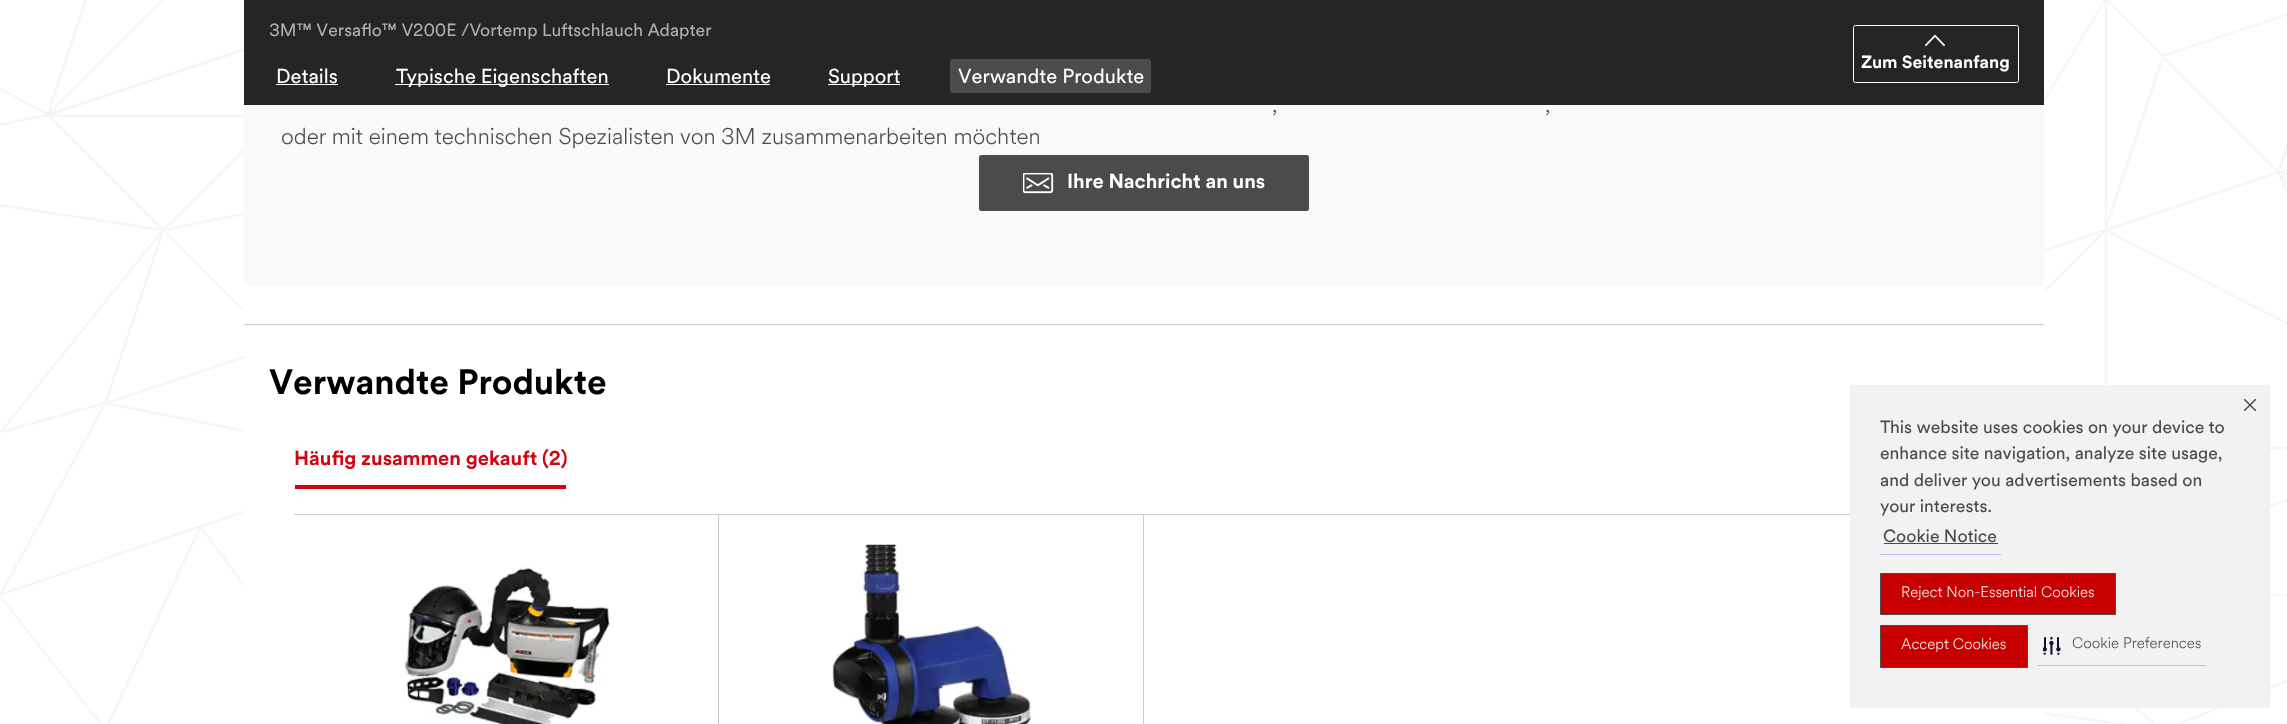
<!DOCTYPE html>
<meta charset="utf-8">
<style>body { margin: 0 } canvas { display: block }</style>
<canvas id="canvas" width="2287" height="724"></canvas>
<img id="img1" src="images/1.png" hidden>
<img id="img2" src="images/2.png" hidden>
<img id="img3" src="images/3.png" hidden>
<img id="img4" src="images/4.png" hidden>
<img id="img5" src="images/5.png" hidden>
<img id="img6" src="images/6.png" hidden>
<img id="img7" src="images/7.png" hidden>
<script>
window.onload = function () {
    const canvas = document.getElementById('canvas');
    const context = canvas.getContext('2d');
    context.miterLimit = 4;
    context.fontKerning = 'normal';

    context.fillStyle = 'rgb(255, 255, 255)';
    context.fillRect(0, 0, 2287, 724);
    context.drawImage(document.getElementById('img1'), 0, 0, 2287, 724);
    context.fillRect(244, 286, 1800, 438);
    context.fillStyle = 'rgb(249, 249, 249)';
    context.fillRect(244, 0, 1800, 286);
    context.fillStyle = 'rgba(0, 0, 0, 0.85)';
    context.fillRect(244, 0, 1800, 105);
    context.beginPath();
    context.roundRect(1853.5, 25.5, 165, 57, 2);
    context.strokeStyle = 'rgb(255, 255, 255)';
    context.stroke();
    context.drawImage(document.getElementById('img2'), 1925, 34, 20, 13);
    context.fillStyle = 'rgb(255, 255, 255)';
    context.fillRect(276, 84, 62, 1);
    context.fillRect(395, 84, 214, 1);
    context.fillRect(666, 84, 104, 1);
    context.fillRect(828, 84, 72, 1);
    context.fillStyle = 'rgb(75, 75, 75)';
    context.beginPath();
    context.roundRect(950, 59, 201, 34, 2.5);
    context.fill();
    context.fillStyle = 'rgb(204, 204, 204)';
    context.fillRect(244, 324, 1800, 1);
    context.fillStyle = 'rgb(75, 75, 75)';
    context.beginPath();
    context.roundRect(979, 155, 330, 56, 2.5);
    context.fill();
    context.drawImage(document.getElementById('img3'), 1023, 173, 31, 21);
    context.fillStyle = 'rgb(209, 4, 17)';
    context.fillRect(295, 485, 271, 4);
    context.fillStyle = 'rgb(204, 204, 204)';
    context.fillRect(294, 514, 1556, 1);
    context.fillRect(718, 514, 1, 210);
    context.drawImage(document.getElementById('img4'), 404, 566, 207, 158);
    context.fillRect(1143, 514, 1, 210);
    context.drawImage(document.getElementById('img5'), 832, 544, 199, 180);
    context.fillStyle = 'rgb(242, 242, 242)';
    context.fillRect(1850, 385, 420, 323);
    context.fillStyle = 'rgb(182, 194, 233)';
    context.fillRect(1880, 554, 121, 1);
    context.fillStyle = 'rgb(75, 75, 75)';
    context.fillRect(1884, 543, 114, 1);
    context.drawImage(document.getElementById('img6'), 2244, 399, 12, 12);
    context.fillStyle = 'rgb(200, 0, 0)';
    context.beginPath();
    context.rect(1880.5, 573.5, 235, 41);
    context.fill();
    context.strokeStyle = 'rgb(75, 75, 75)';
    context.stroke();
    context.beginPath();
    context.rect(1880.5, 625.5, 147, 42);
    context.fill();
    context.stroke();
    context.fillStyle = 'rgb(182, 194, 233)';
    context.fillRect(2038, 665, 168, 1);
    context.drawImage(document.getElementById('img7'), 2043, 636, 18, 19);
    context.font = '17.5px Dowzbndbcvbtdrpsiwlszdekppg';
    context.fillStyle = 'rgb(174, 174, 174)';
    context.fillText('3M™ Versaflo™ V200E /Vortemp Luftschlauch Adapter', 269, 36);
    context.font = 'bold 17.5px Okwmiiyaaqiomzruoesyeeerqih';
    context.fillStyle = 'rgb(255, 255, 255)';
    context.fillText('Zum Seitenanfang', 1861, 68);
    context.font = '20px Dowzbndbcvbtdrpsiwlszdekppg';
    context.fillText('Details', 276, 83);
    context.fillText('Typische Eigenschaften', 396, 83);
    context.fillText('Dokumente', 666, 83);
    context.fillText('Support', 828, 83);
    context.fillText('Verwandte Produkte', 958, 83);
    context.font = '300 22.5px "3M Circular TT"';
    context.fillStyle = 'rgb(75, 75, 75)';
    context.fillText(',', 1272, 112);
    context.fillText(',', 1545, 112);
    context.fillText('oder mit einem technischen Spezialisten von 3M zusammenarbeiten möchten', 281, 144);
    context.font = 'bold 20px Okwmiiyaaqiomzruoesyeeerqih';
    context.fillStyle = 'rgb(255, 255, 255)';
    context.fillText('Ihre Nachricht an uns', 1067, 188);
    context.font = 'bold 35px Okwmiiyaaqiomzruoesyeeerqih';
    context.fillStyle = 'rgb(0, 0, 0)';
    context.fillText('Verwandte Produkte', 269, 394);
    context.font = 'bold 20px Okwmiiyaaqiomzruoesyeeerqih';
    context.fillStyle = 'rgb(209, 4, 17)';
    context.fillText('Häufig zusammen gekauft (2)', 294, 465);
    context.font = '17.5px Dowzbndbcvbtdrpsiwlszdekppg';
    context.fillStyle = 'rgb(75, 75, 75)';
    context.fillText('This website uses cookies on your device to', 1880, 433);
    context.fillText('enhance site navigation, analyze site usage,', 1880, 459);
    context.fillText('and deliver you advertisements based on', 1880, 486);
    context.fillText('your interests.', 1880, 512);
    context.fillText('Cookie Notice', 1883, 542);
    context.font = '300 15px "3M Circular TT"';
    context.fillStyle = 'rgb(242, 242, 242)';
    context.fillText('Reject Non-Essential Cookies', 1901, 597);
    context.fillText('Accept Cookies', 1901, 649);
    context.fillStyle = 'rgb(75, 75, 75)';
    context.fillText('Cookie Preferences', 2072, 648);
};
</script>
